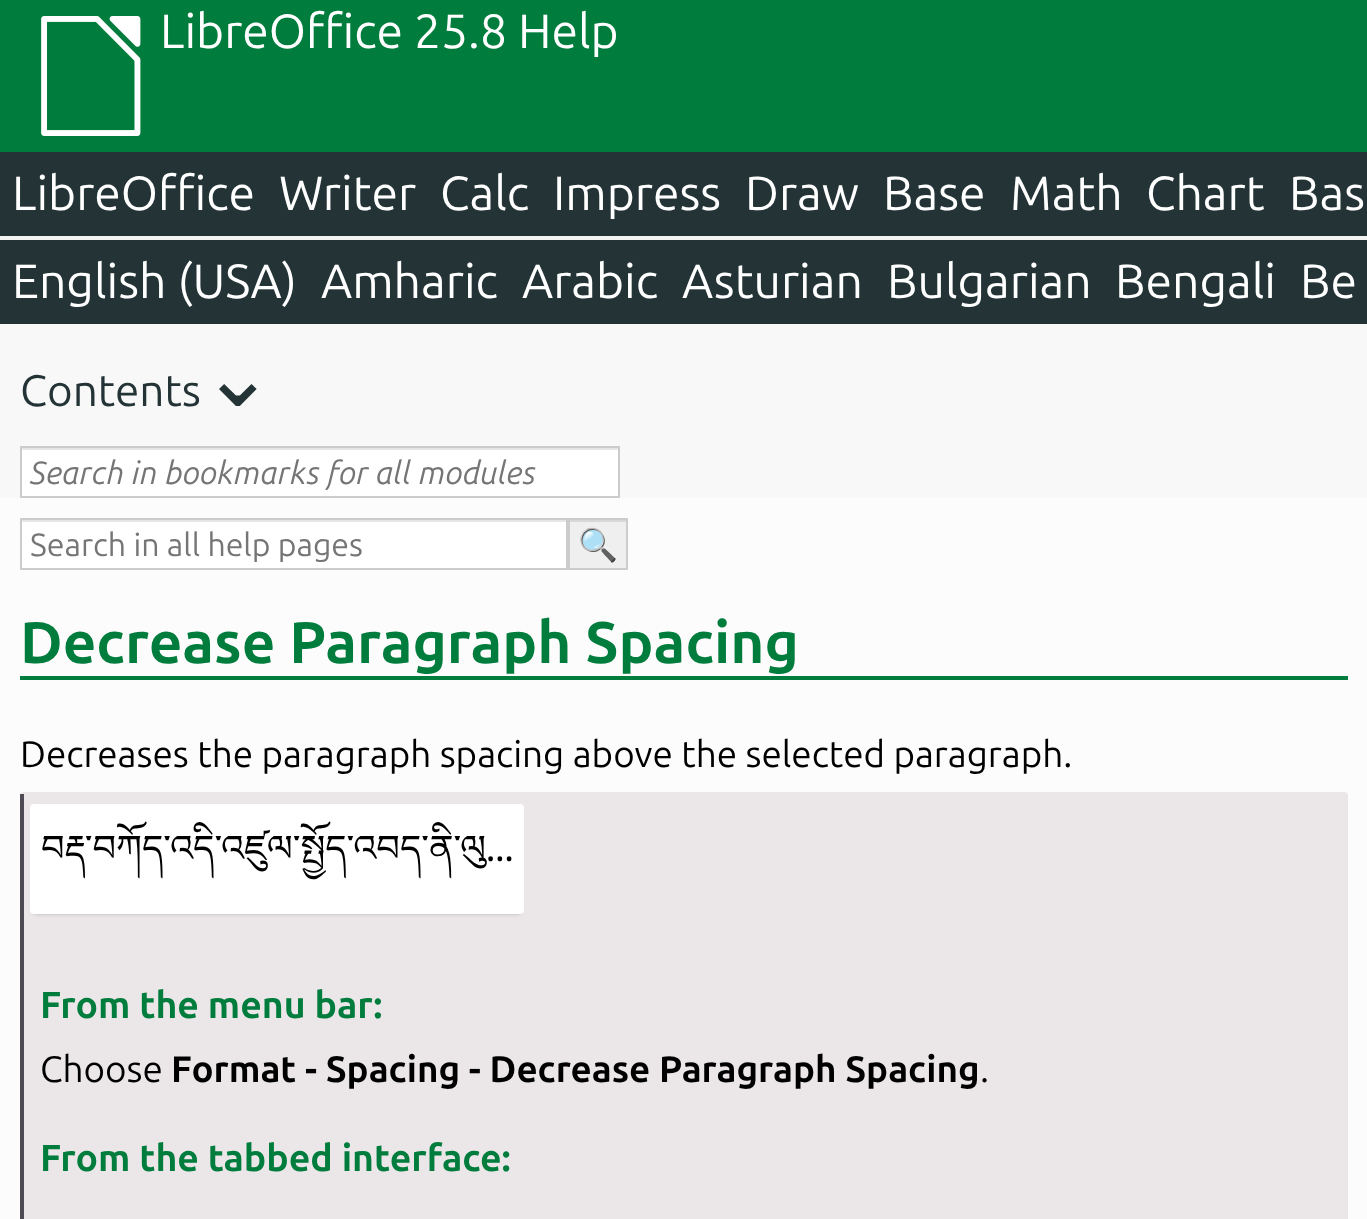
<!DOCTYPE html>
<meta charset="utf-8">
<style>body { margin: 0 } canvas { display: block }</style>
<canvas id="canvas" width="1367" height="1219"></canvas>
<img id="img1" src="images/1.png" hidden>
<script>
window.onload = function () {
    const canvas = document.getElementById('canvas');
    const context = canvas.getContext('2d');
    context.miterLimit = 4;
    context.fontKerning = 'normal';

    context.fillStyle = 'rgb(247, 248, 247)';
    context.fillRect(0, 0, 1367, 1219);
    context.fillStyle = 'rgb(0, 124, 60)';
    context.fillRect(0, 0, 1367, 152);
    context.drawImage(document.getElementById('img1'), 41, 16, 100, 120);
    context.fillStyle = 'rgb(35, 51, 54)';
    context.fillRect(0, 152, 1367, 84);
    context.fillStyle = 'rgb(243, 243, 243)';
    context.fillRect(0, 236, 1367, 4);
    context.fillStyle = 'rgb(35, 51, 54)';
    context.fillRect(0, 240, 1367, 84);
    context.fillStyle = 'rgb(255, 255, 255)';
    context.fillRect(22, 450, 596, 46);
    context.fillStyle = 'rgb(230, 230, 230)';
    context.fillRect(22, 448, 596, 2);
    context.strokeStyle = 'rgb(204, 204, 204)';
    context.lineWidth = 2;
    context.strokeRect(21, 447, 598, 50);
    context.fillStyle = 'rgb(252, 252, 252)';
    context.fillRect(0, 498, 1367, 721);
    context.fillStyle = 'rgb(255, 255, 255)';
    context.fillRect(22, 522, 544, 46);
    context.fillStyle = 'rgb(230, 230, 230)';
    context.fillRect(22, 520, 544, 2);
    context.strokeRect(21, 519, 546, 50);
    context.fillStyle = 'rgb(239, 239, 239)';
    context.fillRect(570, 522, 56, 46);
    context.fillStyle = 'rgb(215, 215, 215)';
    context.fillRect(570, 520, 56, 2);
    context.strokeRect(569, 519, 58, 50);
    context.fillStyle = 'rgb(0, 124, 60)';
    context.fillRect(20, 676, 1328, 4);
    context.fillStyle = 'rgb(235, 231, 233)';
    context.beginPath();
    context.roundRect(20, 792, 1328, 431, 4);
    context.fill();
    context.fillStyle = 'rgb(78, 75, 85)';
    context.fillRect(20, 794, 4, 425);
    context.fillStyle = 'rgba(0, 0, 0, 0.2)';
    context.filter = 'blur(2px)';
    context.beginPath();
    context.rect(34, 812, 486, 102);
    context.fill();
    context.filter = 'none';
    context.fillStyle = 'rgb(255, 255, 255)';
    context.beginPath();
    context.roundRect(30, 804, 494, 110, 4);
    context.fill();
    context.font = '48px Ubuntu';
    context.fillText('LibreOffice 25.8 Help', 160, 48);
    context.fillText('LibreOffice', 12, 210);
    context.fillText('Writer', 279, 210);
    context.fillText('Calc', 440, 210);
    context.fillText('Impress', 553, 210);
    context.fillText('Draw', 745, 210);
    context.fillText('Base', 883, 210);
    context.fillText('Math', 1010, 210);
    context.fillText('Chart', 1146, 210);
    context.fillText('Bas', 1289, 210);
    context.fillText('English (USA)', 12, 298);
    context.fillText('Amharic', 321, 298);
    context.fillText('Arabic', 522, 298);
    context.fillText('Asturian', 682, 298);
    context.fillText('Bulgarian', 887, 298);
    context.fillText('Bengali', 1115, 298);
    context.fillText('Be', 1300, 298);
    context.font = '44px Ubuntu';
    context.fillStyle = 'rgb(35, 51, 54)';
    context.fillText('Contents', 20, 406);
    context.font = '88px DejaVu Sans';
    context.fillText('⌄', 201, 406);
    context.font = 'italic 32px Ubuntu';
    context.fillStyle = 'rgb(117, 117, 117)';
    context.fillText('Search in bookmarks for all modules', 30, 484);
    context.font = '32px Ubuntu';
    context.fillText('Search in all help pages', 30, 556);
    context.font = '32px Noto Color Emoji';
    context.fillStyle = 'rgb(0, 0, 0)';
    context.fillText('🔍', 578, 556);
    context.font = 'bold 58.5px Ubuntu';
    context.fillStyle = 'rgb(0, 124, 60)';
    context.fillText('Decrease Paragraph Spacing', 20, 663);
    context.font = '36.8px Ubuntu';
    context.fillStyle = 'rgb(0, 0, 0)';
    context.fillText('Decreases the paragraph spacing above the selected paragraph.', 20, 767);
    context.font = '36.8px Noto Serif Tibetan';
    context.fillText('བརྡ་བཀོད་འདི་འཛུལ་སྤྱོད་འབད་ནི་ལུ...', 41, 861);
    context.font = 'bold 37.5px Ubuntu';
    context.fillStyle = 'rgb(0, 124, 60)';
    context.fillText('From the menu bar:', 40, 1018);
    context.font = '36.8px Ubuntu';
    context.fillStyle = 'rgb(0, 0, 0)';
    context.fillText('Choose', 40, 1082);
    context.font = 'bold 36.8px Ubuntu';
    context.fillText('Format - Spacing - Decrease Paragraph Spacing', 171, 1082);
    context.font = '36.8px Ubuntu';
    context.fillText('.', 980, 1082);
    context.font = 'bold 37.5px Ubuntu';
    context.fillStyle = 'rgb(0, 124, 60)';
    context.fillText('From the tabbed interface:', 40, 1171);
};
</script>
